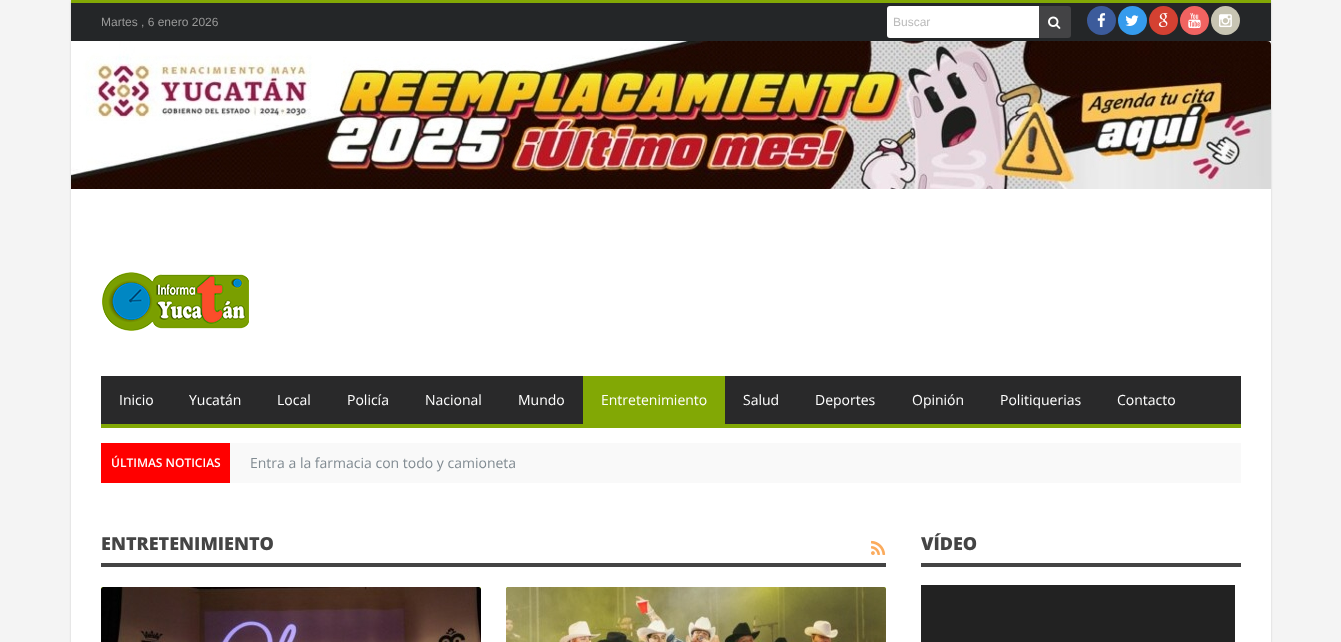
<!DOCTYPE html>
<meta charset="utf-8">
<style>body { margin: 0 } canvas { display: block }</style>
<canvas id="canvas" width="1341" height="642"></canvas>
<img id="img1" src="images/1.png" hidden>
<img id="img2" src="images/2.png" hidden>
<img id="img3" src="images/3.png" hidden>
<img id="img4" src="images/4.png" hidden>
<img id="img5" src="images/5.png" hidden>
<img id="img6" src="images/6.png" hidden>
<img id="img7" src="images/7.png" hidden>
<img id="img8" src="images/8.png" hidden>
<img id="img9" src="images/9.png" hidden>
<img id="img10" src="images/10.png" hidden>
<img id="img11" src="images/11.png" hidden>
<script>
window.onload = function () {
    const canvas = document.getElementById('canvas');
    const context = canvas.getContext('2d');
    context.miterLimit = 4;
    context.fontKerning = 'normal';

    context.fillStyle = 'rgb(244, 244, 244)';
    context.fillRect(0, 0, 1341, 642);
    context.fillStyle = 'rgba(0, 0, 0, 0.15)';
    context.filter = 'blur(1px)';
    context.beginPath();
    context.rect(71, 1, 1200, 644);
    context.fill();
    context.filter = 'none';
    context.fillStyle = 'rgb(255, 255, 255)';
    context.fillRect(71, 41, 1200, 601);
    context.fillStyle = 'rgb(36, 38, 40)';
    context.fillRect(71, 3, 1200, 38);
    context.fillStyle = 'rgb(130, 168, 5)';
    context.fillRect(71, 0, 1200, 3);
    context.fillStyle = 'rgb(255, 255, 255)';
    context.beginPath();
    context.roundRect(887, 6, 152, 32, [3, 0, 0, 3]);
    context.fill();
    context.fillStyle = 'rgb(67, 67, 69)';
    context.beginPath();
    context.roundRect(1039, 6, 32, 32, [0, 3, 3, 0]);
    context.fill();
    context.drawImage(document.getElementById('img1'), 1048, 16, 13, 13);
    context.fillStyle = 'rgb(60, 91, 155)';
    context.beginPath();
    context.arc(1101.5, 20.5, 14.5, 0, 2 * Math.PI);
    context.fill();
    context.drawImage(document.getElementById('img2'), 1097, 13, 9, 15);
    context.fillStyle = 'rgb(53, 155, 237)';
    context.beginPath();
    context.arc(1132.5, 20.5, 14.5, 0, 2 * Math.PI);
    context.fill();
    context.drawImage(document.getElementById('img3'), 1125, 15, 14, 11);
    context.fillStyle = 'rgb(212, 65, 50)';
    context.beginPath();
    context.arc(1163.5, 20.5, 14.5, 0, 2 * Math.PI);
    context.fill();
    context.drawImage(document.getElementById('img4'), 1158, 13, 10, 15);
    context.fillStyle = 'rgb(241, 99, 97)';
    context.beginPath();
    context.arc(1194.5, 20.5, 14.5, 0, 2 * Math.PI);
    context.fill();
    context.drawImage(document.getElementById('img5'), 1188, 13, 13, 16);
    context.fillStyle = 'rgb(200, 197, 179)';
    context.beginPath();
    context.arc(1225.5, 20.5, 14.5, 0, 2 * Math.PI);
    context.fill();
    context.drawImage(document.getElementById('img6'), 1219, 14, 13, 14);
    context.drawImage(document.getElementById('img7'), 71, 41, 1200, 148);
    context.drawImage(document.getElementById('img8'), 102, 272, 147, 59);
    context.fillStyle = 'rgb(41, 41, 42)';
    context.fillRect(101, 376, 1140, 48);
    context.fillStyle = 'rgb(130, 168, 5)';
    context.fillRect(101, 424, 1140, 4);
    context.fillRect(583, 376, 142, 48);
    context.fillStyle = 'rgb(249, 249, 249)';
    context.fillRect(230, 443, 1011, 40);
    context.fillStyle = 'rgb(255, 0, 0)';
    context.fillRect(101, 443, 129, 40);
    context.fillStyle = 'rgb(68, 68, 68)';
    context.fillRect(101, 563, 785, 4);
    context.drawImage(document.getElementById('img9'), 871, 540, 15, 15);
    context.fillStyle = 'rgb(130, 168, 5)';
    context.beginPath();
    context.roundRect(101, 587, 380, 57, 2);
    context.fill();
    context.drawImage(document.getElementById('img10'), 101, 587, 380, 55);
    context.beginPath();
    context.roundRect(506, 587, 380, 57, 2);
    context.fill();
    context.drawImage(document.getElementById('img11'), 506, 587, 380, 55);
    context.fillStyle = 'rgb(68, 68, 68)';
    context.fillRect(921, 563, 320, 4);
    context.fillStyle = 'rgb(34, 34, 34)';
    context.fillRect(921, 585, 314, 57);
    context.font = '12px Liberation Sans';
    context.fillStyle = 'rgb(153, 153, 153)';
    context.fillText('Martes , 6 enero 2026', 101, 26);
    context.fillStyle = 'rgb(187, 187, 187)';
    context.fillText('Buscar', 893, 26);
    context.font = '14px Open Sans';
    context.fillStyle = 'rgb(255, 255, 255)';
    context.fillText('Inicio', 119, 405);
    context.fillText('Yucatán', 189, 405);
    context.fillText('Local', 277, 405);
    context.fillText('Policía', 347, 405);
    context.fillText('Nacional', 425, 405);
    context.fillText('Mundo', 518, 405);
    context.fillText('Entretenimiento', 601, 405);
    context.fillText('Salud', 743, 405);
    context.fillText('Deportes', 815, 405);
    context.fillText('Opinión', 912, 405);
    context.fillText('Politiquerias', 1000, 405);
    context.fillText('Contacto', 1117, 405);
    context.font = '600 12px Open Sans';
    context.fillText('ÚLTIMAS NOTICIAS', 111, 467);
    context.font = '14px Open Sans';
    context.fillStyle = 'rgb(129, 139, 146)';
    context.fillText('Entra a la farmacia con todo y camioneta', 250, 468);
    context.font = '800 18px Open Sans';
    context.fillStyle = 'rgb(68, 68, 68)';
    context.fillText('ENTRETENIMIENTO', 101, 550);
    context.fillText('VÍDEO', 921, 550);
};
</script>
